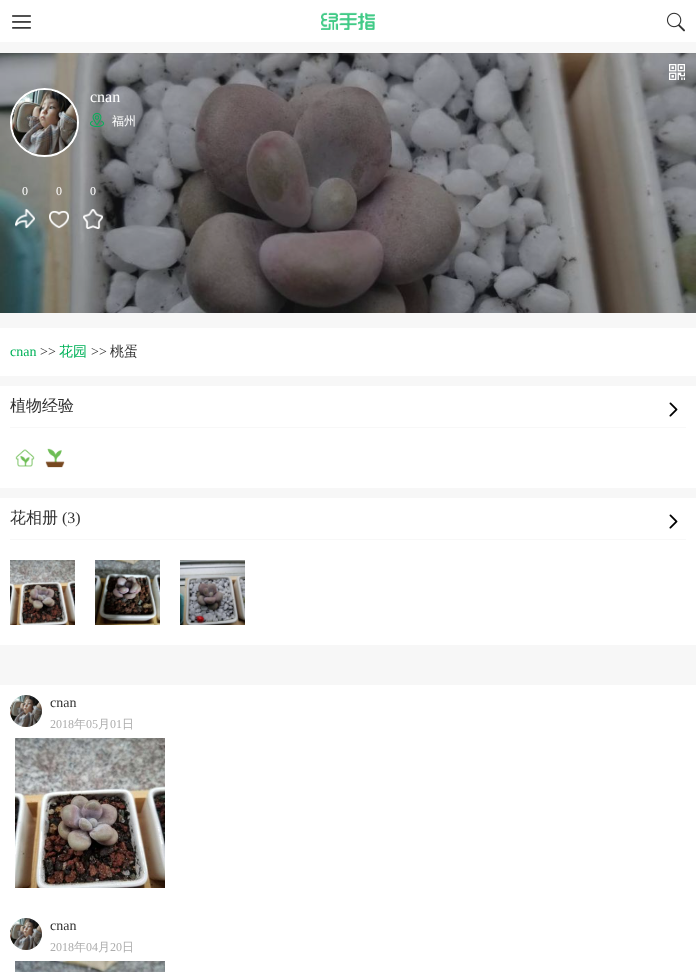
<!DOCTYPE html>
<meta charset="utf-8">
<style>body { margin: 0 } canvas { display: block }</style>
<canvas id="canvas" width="696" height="972"></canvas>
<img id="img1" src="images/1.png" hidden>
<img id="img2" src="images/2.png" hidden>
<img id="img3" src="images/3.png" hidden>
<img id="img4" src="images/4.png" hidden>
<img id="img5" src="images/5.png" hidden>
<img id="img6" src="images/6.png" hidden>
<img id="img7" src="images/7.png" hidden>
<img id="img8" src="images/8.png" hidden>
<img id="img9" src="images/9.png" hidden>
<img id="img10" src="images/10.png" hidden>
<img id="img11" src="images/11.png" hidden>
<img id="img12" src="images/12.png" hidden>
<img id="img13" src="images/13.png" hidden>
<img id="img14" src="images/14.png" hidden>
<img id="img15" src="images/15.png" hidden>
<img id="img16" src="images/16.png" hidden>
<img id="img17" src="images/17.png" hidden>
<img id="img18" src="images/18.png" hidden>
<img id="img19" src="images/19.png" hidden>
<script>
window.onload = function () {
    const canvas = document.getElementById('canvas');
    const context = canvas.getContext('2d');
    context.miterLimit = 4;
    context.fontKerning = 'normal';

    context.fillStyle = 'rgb(247, 247, 247)';
    context.fillRect(0, 0, 696, 972);
    context.fillStyle = 'rgb(255, 255, 255)';
    context.fillRect(0, 0, 696, 42);
    context.drawImage(document.getElementById('img1'), 12, 15, 19, 14);
    context.drawImage(document.getElementById('img2'), 321, 12, 54, 18);
    context.drawImage(document.getElementById('img3'), 666, 12, 19, 20);
    context.drawImage(document.getElementById('img4'), 0, 53, 696, 260);
    context.drawImage(document.getElementById('img5'), 669, 64, 16, 16);
    context.drawImage(document.getElementById('img6'), 90, 113, 14, 14);
    context.beginPath();
    context.arc(44.5, 122.5, 33.5, 0, 2 * Math.PI);
    context.strokeStyle = 'rgb(255, 255, 255)';
    context.lineWidth = 2;
    context.stroke();
    context.drawImage(document.getElementById('img7'), 12, 90, 65, 65);
    context.drawImage(document.getElementById('img8'), 15, 209, 20, 20);
    context.drawImage(document.getElementById('img9'), 49, 210, 20, 19);
    context.drawImage(document.getElementById('img10'), 83, 209, 20, 20);
    context.fillRect(0, 328, 696, 48);
    context.fillRect(0, 386, 696, 102);
    context.fillStyle = 'rgb(248, 248, 248)';
    context.fillRect(10, 427, 676, 1);
    context.drawImage(document.getElementById('img11'), 669, 402, 9, 15);
    context.drawImage(document.getElementById('img12'), 15, 449, 20, 18);
    context.drawImage(document.getElementById('img13'), 45, 448, 20, 20);
    context.fillStyle = 'rgb(255, 255, 255)';
    context.fillRect(0, 498, 696, 147);
    context.fillStyle = 'rgb(248, 248, 248)';
    context.fillRect(10, 539, 676, 1);
    context.drawImage(document.getElementById('img11'), 669, 514, 9, 15);
    context.drawImage(document.getElementById('img14'), 10, 560, 65, 65);
    context.drawImage(document.getElementById('img15'), 95, 560, 65, 65);
    context.drawImage(document.getElementById('img16'), 180, 560, 65, 65);
    context.fillStyle = 'rgb(255, 255, 255)';
    context.fillRect(0, 685, 696, 287);
    context.drawImage(document.getElementById('img17'), 10, 695, 32, 32);
    context.drawImage(document.getElementById('img18'), 15, 738, 150, 150);
    context.drawImage(document.getElementById('img17'), 10, 918, 32, 32);
    context.drawImage(document.getElementById('img19'), 15, 961, 150, 11);
    context.font = '16px Liberation Serif';
    context.fillText('cnan', 90, 102);
    context.font = '500 12px WenQuanYi Zen Hei';
    context.fillText('福州', 112, 125);
    context.font = '12px Liberation Serif';
    context.fillText('0', 22, 195);
    context.fillText('0', 56, 195);
    context.fillText('0', 90, 195);
    context.font = '14px Liberation Serif';
    context.fillStyle = 'rgb(1, 178, 89)';
    context.fillText('cnan', 10, 356);
    context.fillStyle = 'rgb(49, 49, 49)';
    context.fillText('>>', 40, 356);
    context.font = '500 14px WenQuanYi Zen Hei';
    context.fillStyle = 'rgb(1, 178, 89)';
    context.fillText('花园', 59, 356);
    context.font = '14px Liberation Serif';
    context.fillStyle = 'rgb(49, 49, 49)';
    context.fillText('>>', 91, 356);
    context.font = '500 14px WenQuanYi Zen Hei';
    context.fillText('桃蛋', 110, 356);
    context.font = '500 16px WenQuanYi Zen Hei';
    context.fillText('植物经验', 10, 411);
    context.fillText('花相册', 10, 523);
    context.font = '16px Liberation Serif';
    context.fillText('(3)', 62, 523);
    context.font = '14px Liberation Serif';
    context.fillText('cnan', 50, 707);
    context.font = '12px Liberation Serif';
    context.fillStyle = 'rgb(173, 173, 173)';
    context.fillText('2018', 50, 728);
    context.font = '500 12px WenQuanYi Zen Hei';
    context.fillText('年', 74, 728);
    context.font = '12px Liberation Serif';
    context.fillText('05', 86, 728);
    context.font = '500 12px WenQuanYi Zen Hei';
    context.fillText('月', 98, 728);
    context.font = '12px Liberation Serif';
    context.fillText('01', 110, 728);
    context.font = '500 12px WenQuanYi Zen Hei';
    context.fillText('日', 122, 728);
    context.font = '14px Liberation Serif';
    context.fillStyle = 'rgb(49, 49, 49)';
    context.fillText('cnan', 50, 930);
    context.font = '12px Liberation Serif';
    context.fillStyle = 'rgb(173, 173, 173)';
    context.fillText('2018', 50, 951);
    context.font = '500 12px WenQuanYi Zen Hei';
    context.fillText('年', 74, 951);
    context.font = '12px Liberation Serif';
    context.fillText('04', 86, 951);
    context.font = '500 12px WenQuanYi Zen Hei';
    context.fillText('月', 98, 951);
    context.font = '12px Liberation Serif';
    context.fillText('20', 110, 951);
    context.font = '500 12px WenQuanYi Zen Hei';
    context.fillText('日', 122, 951);
};
</script>
